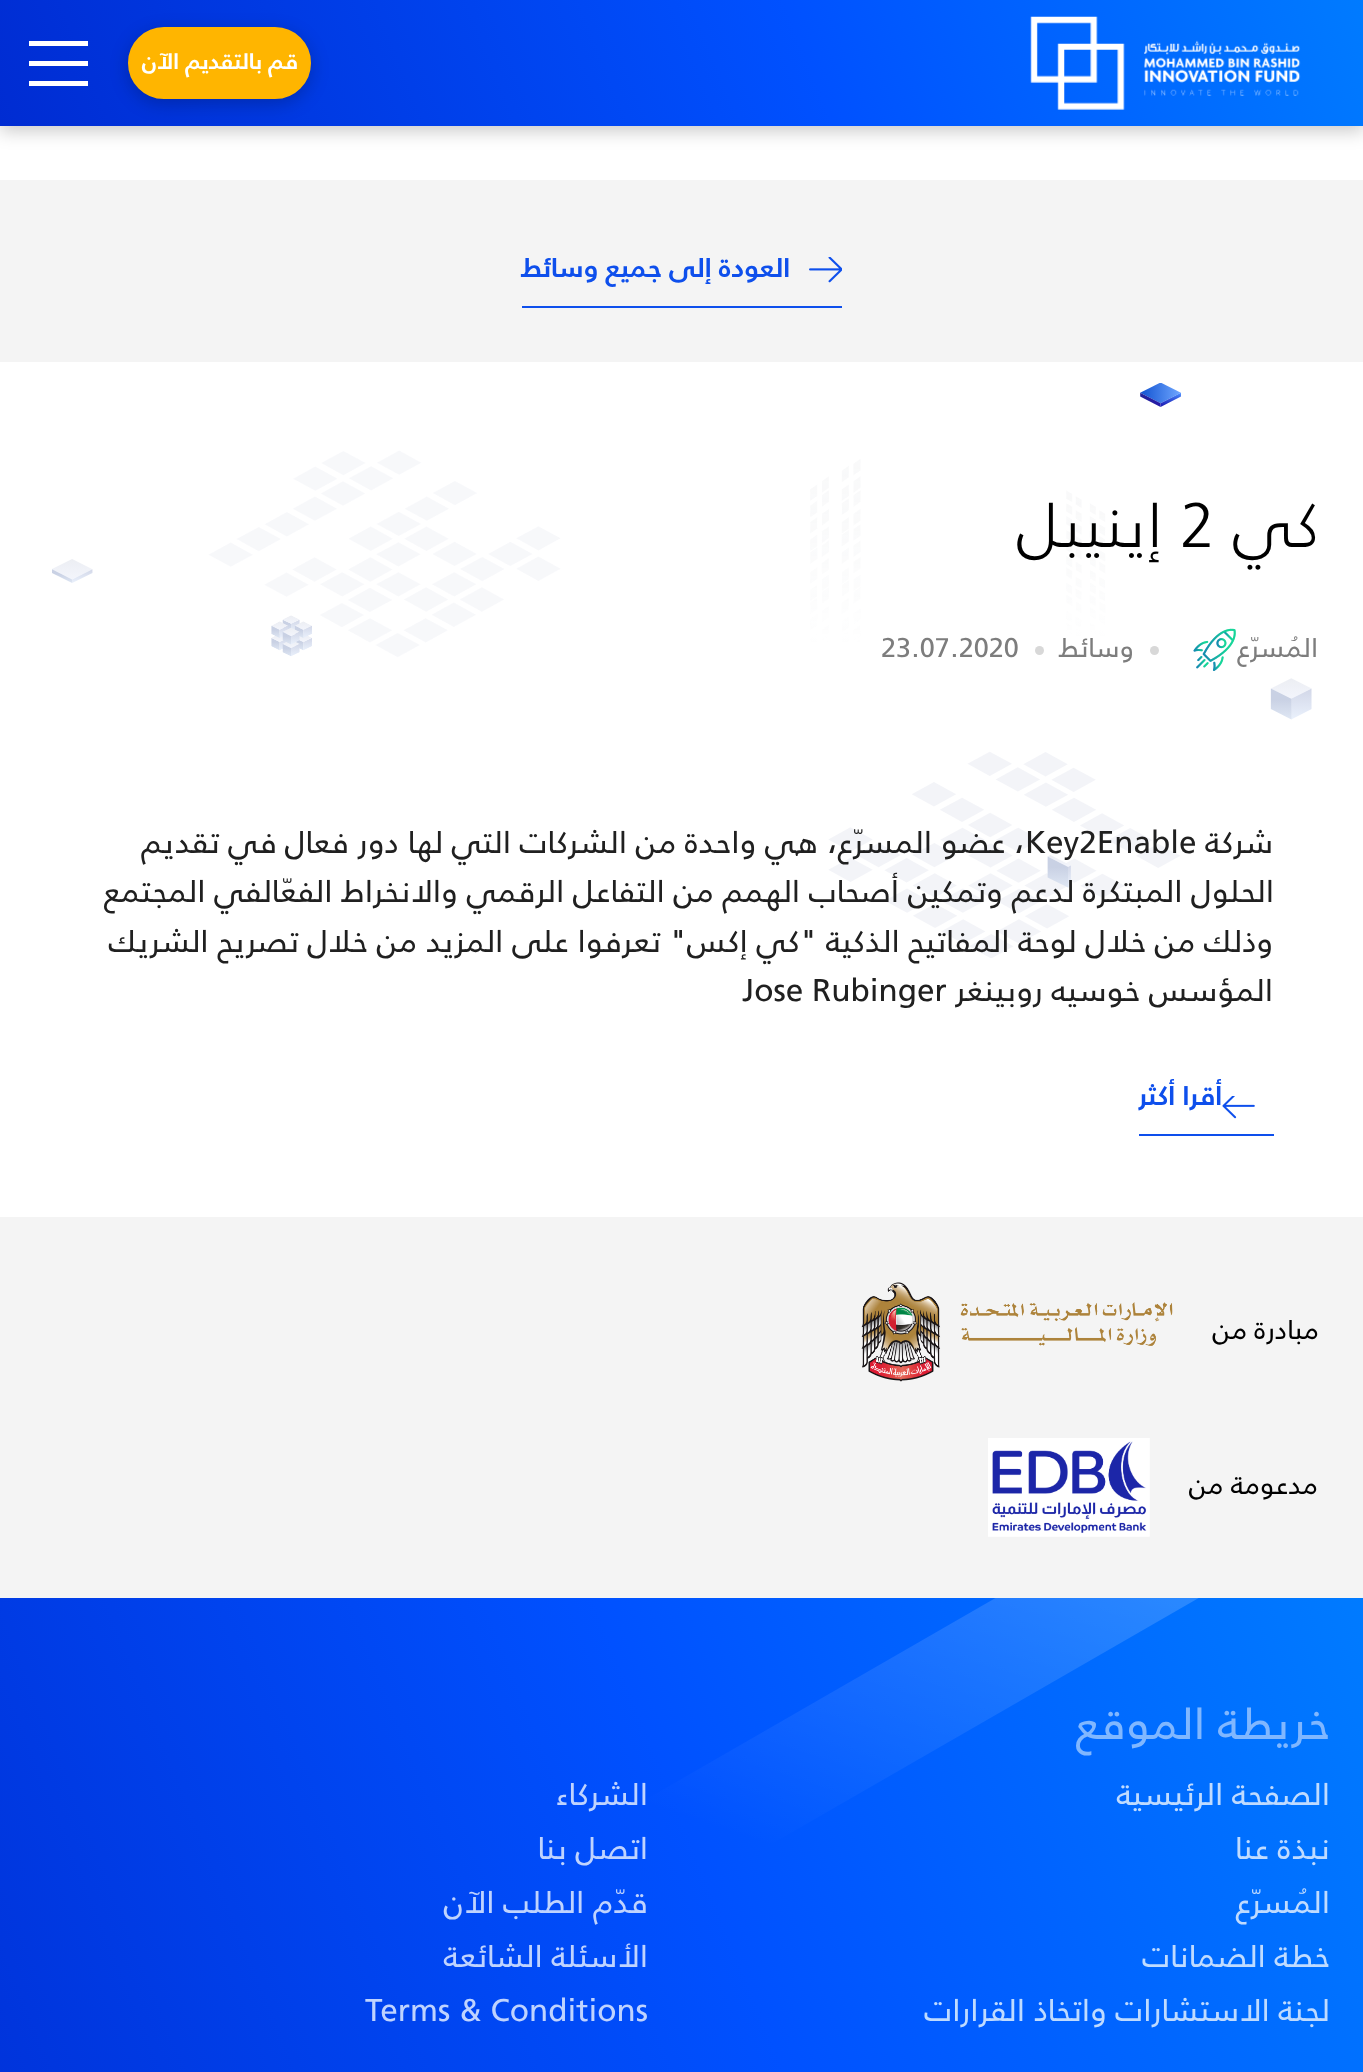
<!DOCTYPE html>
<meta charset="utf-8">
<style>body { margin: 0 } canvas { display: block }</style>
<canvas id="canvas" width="1363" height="2072"></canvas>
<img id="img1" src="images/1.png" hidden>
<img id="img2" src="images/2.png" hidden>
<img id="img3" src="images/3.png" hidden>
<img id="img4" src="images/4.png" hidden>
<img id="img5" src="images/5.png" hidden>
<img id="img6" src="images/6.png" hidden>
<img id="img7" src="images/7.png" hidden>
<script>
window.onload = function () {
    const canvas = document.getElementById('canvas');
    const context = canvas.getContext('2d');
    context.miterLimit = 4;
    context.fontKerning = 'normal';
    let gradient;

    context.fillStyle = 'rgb(255, 255, 255)';
    context.fillRect(0, 0, 1363, 2072);
    context.fillStyle = 'rgba(0, 0, 0, 0.21)';
    context.filter = 'blur(9px)';
    context.beginPath();
    context.rect(0, 5, 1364, 126);
    context.fill();
    context.filter = 'none';
    gradient = context.createLinearGradient(74, 309, 1290, -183);
    gradient.addColorStop(0, 'rgb(0, 44, 210)');
    gradient.addColorStop(0.59, 'rgb(0, 81, 255)');
    gradient.addColorStop(1, 'rgb(0, 123, 255)');
    context.fillStyle = gradient;
    context.fillRect(0, 0, 1363, 126);
    context.drawImage(document.getElementById('img1'), 1030, 16, 271, 94);
    context.fillStyle = 'rgba(0, 0, 0, 0.21)';
    context.filter = 'blur(9px)';
    context.beginPath();
    context.roundRect(128, 32, 183, 72, 36);
    context.fill();
    context.filter = 'none';
    context.fillStyle = 'rgb(255, 181, 0)';
    context.beginPath();
    context.roundRect(129, 28, 181, 70, 35);
    context.fill();
    context.strokeStyle = 'rgb(255, 181, 0)';
    context.lineWidth = 2;
    context.stroke();
    context.fillStyle = 'rgb(255, 255, 255)';
    context.fillRect(29, 41, 59, 5);
    context.fillRect(29, 61, 59, 5);
    context.fillRect(29, 81, 59, 5);
    context.fillStyle = 'rgb(244, 244, 244)';
    context.fillRect(0, 180, 1363, 182);
    context.fillStyle = 'rgb(14, 79, 236)';
    context.fillRect(522, 306, 320, 2);
    context.drawImage(document.getElementById('img2'), 809, 257, 33, 26);
    context.drawImage(document.getElementById('img3'), 52, 383, 1260, 575);
    context.drawImage(document.getElementById('img4'), 1193, 628, 43, 43);
    context.fillStyle = 'rgb(216, 216, 216)';
    context.beginPath();
    context.arc(1154.5, 650.5, 4.5, 0, 2 * Math.PI);
    context.fill();
    context.beginPath();
    context.arc(1039.5, 650.5, 4.5, 0, 2 * Math.PI);
    context.fill();
    context.fillStyle = 'rgb(14, 79, 236)';
    context.fillRect(1139, 1134, 135, 2);
    context.drawImage(document.getElementById('img5'), 1222, 1096, 33, 23);
    context.fillStyle = 'rgb(244, 244, 244)';
    context.fillRect(0, 1217, 1363, 381);
    context.drawImage(document.getElementById('img6'), 861, 1282, 312, 100);
    context.drawImage(document.getElementById('img7'), 988, 1438, 162, 99);
    gradient = context.createLinearGradient(-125, 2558, 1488, 1906);
    gradient.addColorStop(0, 'rgb(0, 40, 205)');
    gradient.addColorStop(0.59, 'rgb(0, 81, 255)');
    gradient.addColorStop(1, 'rgb(0, 123, 255)');
    context.fillStyle = gradient;
    context.fillRect(0, 1598, 1363, 474);
    context.save();
    context.beginPath();
    context.rect(648, 1598, 554, 245);
    context.clip();
    gradient = context.createLinearGradient(1095, 1126, 837, 1880);
    gradient.addColorStop(0, 'rgba(255, 255, 255, 0.35)');
    gradient.addColorStop(0.99, 'rgba(255, 255, 255, 0)');
    context.fillStyle = gradient;
    context.beginPath();
    context.moveTo(360, 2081);
    context.lineTo(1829, 1235);
    context.lineTo(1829, 1118);
    context.lineTo(360, 1964);
    context.closePath();
    context.fill();
    context.restore();
    context.direction = 'rtl';
    context.font = '22.5px "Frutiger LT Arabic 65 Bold"';
    context.fillStyle = 'rgb(255, 255, 255)';
    context.fillText('قم بالتقديم الآن', 298, 69);
    context.font = '27px "Frutiger LT Arabic 65 Bold"';
    context.fillStyle = 'rgb(14, 79, 236)';
    context.fillText('العودة إلى جميع وسائط', 790, 277);
    context.font = '63px "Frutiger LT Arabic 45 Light"';
    context.fillStyle = 'rgb(0, 0, 0)';
    context.fillText('كي', 1319, 547);
    context.direction = 'ltr';
    context.fillText('2', 1180, 547);
    context.direction = 'rtl';
    context.fillText('إينيبل', 1163, 547);
    context.font = '27px "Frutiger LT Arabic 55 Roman"';
    context.fillStyle = 'rgb(125, 125, 125)';
    context.fillText('المُسرّع', 1318, 657);
    context.fillText('وسائط', 1134, 657);
    context.direction = 'ltr';
    context.fillText('23.07.2020', 881, 657);
    context.direction = 'rtl';
    context.font = '31.5px "Frutiger LT Arabic 55 Roman"';
    context.fillStyle = 'rgb(32, 32, 32)';
    context.fillText('شركة', 1273, 853);
    context.direction = 'ltr';
    context.fillText('Key2Enable', 1025, 853);
    context.direction = 'rtl';
    context.fillText('، عضو المسرّع، هي واحدة من الشركات التي لها دور فعال', 1025, 853);
    context.fillText('في تقديم', 277, 853);
    context.fillText('الحلول المبتكرة لدعم وتمكين أصحاب الهمم من التفاعل الرقمي والانخراط الفعّالفي المجتمع', 1274, 902);
    context.fillText('وذلك من خلال لوحة المفاتيح الذكية "كي إكس" تعرفوا على المزيد من خلال تصريح الشريك', 1273, 952);
    context.fillText('المؤسس خوسيه روبينغر', 1273, 1001);
    context.direction = 'ltr';
    context.fillText('Jose Rubinger', 742, 1001);
    context.direction = 'rtl';
    context.font = '27px "Frutiger LT Arabic 65 Bold"';
    context.fillStyle = 'rgb(14, 79, 236)';
    context.fillText('أقرا أكثر', 1222, 1105);
    context.font = '27px "Frutiger LT Arabic 55 Roman"';
    context.fillStyle = 'rgb(0, 0, 0)';
    context.fillText('مبادرة من', 1319, 1339);
    context.fillText('مدعومة من', 1318, 1494);
    context.font = '45px "Frutiger LT Arabic 55 Roman"';
    context.fillStyle = 'rgb(128, 183, 255)';
    context.fillText('خريطة الموقع', 1330, 1739);
    context.font = '31.5px "Frutiger LT Arabic 55 Roman"';
    context.fillStyle = 'rgb(191, 219, 255)';
    context.fillText('الصفحة الرئيسية', 1330, 1805);
    context.fillStyle = 'rgb(191, 211, 254)';
    context.fillText('الشركاء', 648, 1805);
    context.fillStyle = 'rgb(191, 219, 255)';
    context.fillText('نبذة عنا', 1330, 1859);
    context.fillStyle = 'rgb(191, 211, 254)';
    context.fillText('اتصل بنا', 648, 1859);
    context.fillStyle = 'rgb(191, 219, 255)';
    context.fillText('المُسرّع', 1330, 1913);
    context.fillStyle = 'rgb(191, 211, 254)';
    context.fillText('قدّم الطلب الآن', 648, 1913);
    context.fillStyle = 'rgb(191, 219, 255)';
    context.fillText('خطة الضمانات', 1330, 1967);
    context.fillStyle = 'rgb(191, 211, 254)';
    context.fillText('الأسئلة الشائعة', 648, 1967);
    context.fillStyle = 'rgb(191, 219, 255)';
    context.fillText('لجنة الاستشارات واتخاذ القرارات', 1330, 2021);
    context.direction = 'ltr';
    context.fillStyle = 'rgb(191, 211, 254)';
    context.fillText('Terms & Conditions', 365, 2021);
};
</script>
